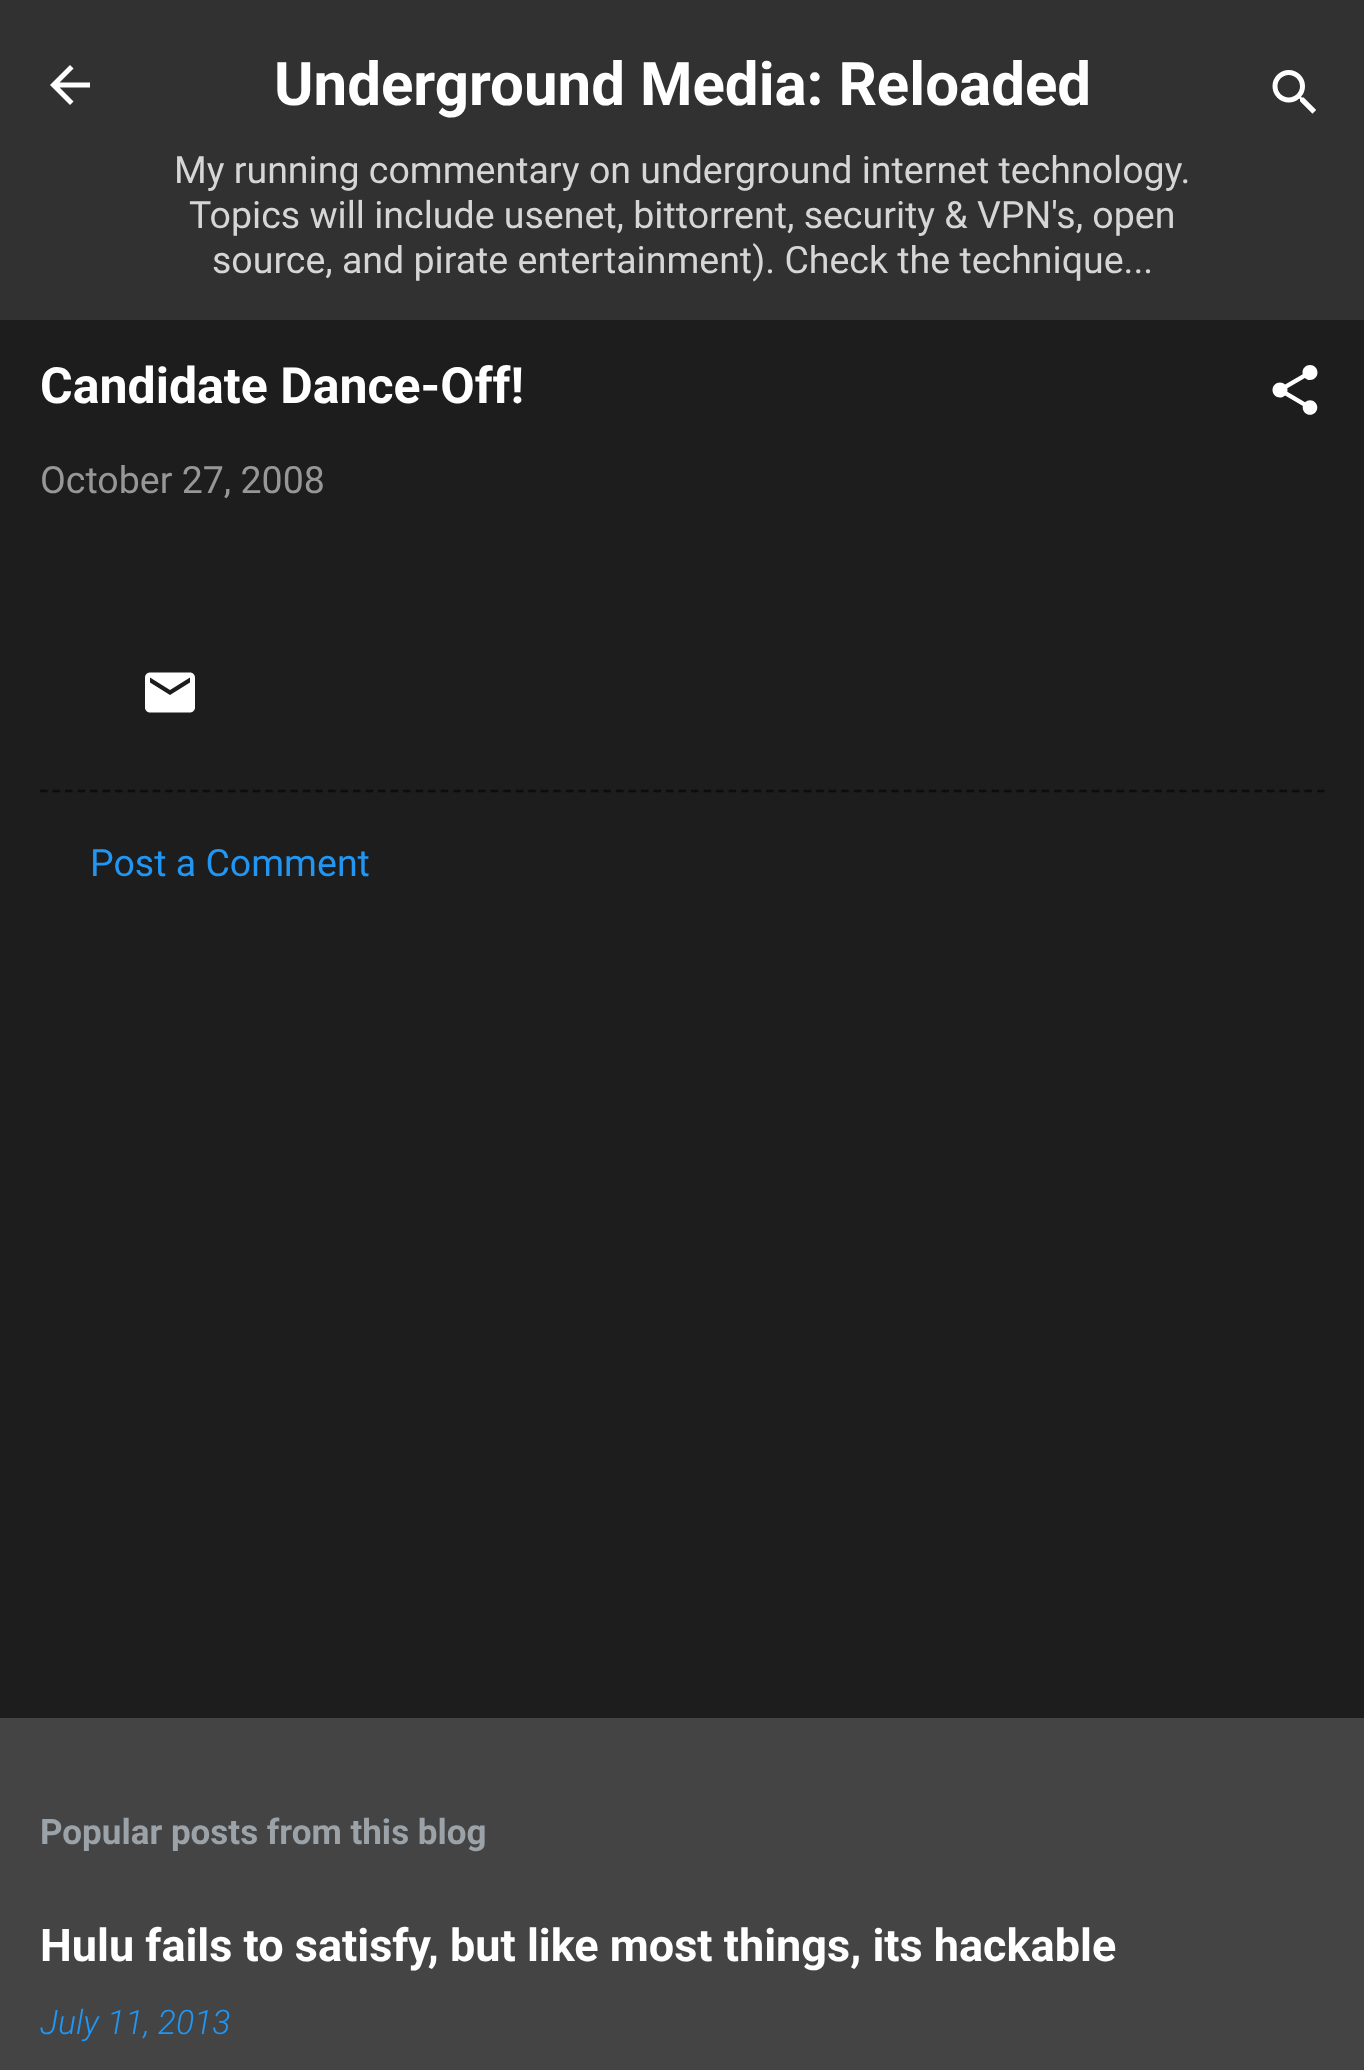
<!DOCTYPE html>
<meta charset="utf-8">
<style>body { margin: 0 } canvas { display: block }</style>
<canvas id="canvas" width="1364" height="2070"></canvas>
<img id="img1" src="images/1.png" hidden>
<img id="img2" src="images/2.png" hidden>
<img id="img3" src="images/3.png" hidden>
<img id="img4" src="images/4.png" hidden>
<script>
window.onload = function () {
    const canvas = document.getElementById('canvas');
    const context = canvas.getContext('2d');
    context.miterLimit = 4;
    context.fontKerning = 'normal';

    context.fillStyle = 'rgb(68, 68, 68)';
    context.fillRect(0, 0, 1364, 2070);
    context.fillStyle = 'rgb(49, 49, 49)';
    context.fillRect(0, 0, 1364, 320);
    context.drawImage(document.getElementById('img1'), 50, 65, 40, 40);
    context.drawImage(document.getElementById('img2'), 1272, 70, 44, 44);
    context.fillStyle = 'rgb(29, 29, 29)';
    context.fillRect(0, 320, 1364, 1398);
    context.drawImage(document.getElementById('img3'), 1272, 365, 46, 50);
    context.drawImage(document.getElementById('img4'), 145, 672, 50, 41);
    context.beginPath();
    context.moveTo(40, 791);
    context.lineTo(1325, 791);
    context.strokeStyle = 'rgb(13, 13, 13)';
    context.lineWidth = 2.5;
    context.setLineDash([7.5, 5.02]);
    context.stroke();
    context.font = 'bold 60px Roboto';
    context.fillStyle = 'rgb(255, 255, 255)';
    context.fillText('Underground Media: Reloaded', 274, 105);
    context.font = '37.5px Roboto';
    context.fillStyle = 'rgb(214, 214, 214)';
    context.fillText('My running commentary on underground internet technology.', 174, 183);
    context.fillText('Topics will include usenet, bittorrent, security & VPN\'s, open', 189, 228);
    context.fillText('source, and pirate entertainment). Check the technique...', 212, 273);
    context.font = 'bold 50px Roboto';
    context.fillStyle = 'rgb(255, 255, 255)';
    context.fillText('Candidate Dance-Off!', 40, 403);
    context.font = '37.5px Roboto';
    context.fillStyle = 'rgb(151, 151, 151)';
    context.fillText('October 27, 2008', 40, 493);
    context.fillStyle = 'rgb(33, 150, 243)';
    context.fillText('Post a Comment', 90, 876);
    context.font = 'bold 35px Roboto';
    context.fillStyle = 'rgb(155, 162, 168)';
    context.fillText('Popular posts from this blog', 40, 1844);
    context.font = 'bold 45px Roboto';
    context.fillStyle = 'rgb(255, 255, 255)';
    context.fillText('Hulu fails to satisfy, but like most things, its hackable', 40, 1961);
    context.font = 'italic 300 33.75px Roboto';
    context.fillStyle = 'rgb(33, 150, 243)';
    context.fillText('July 11, 2013', 40, 2034);
};
</script>
